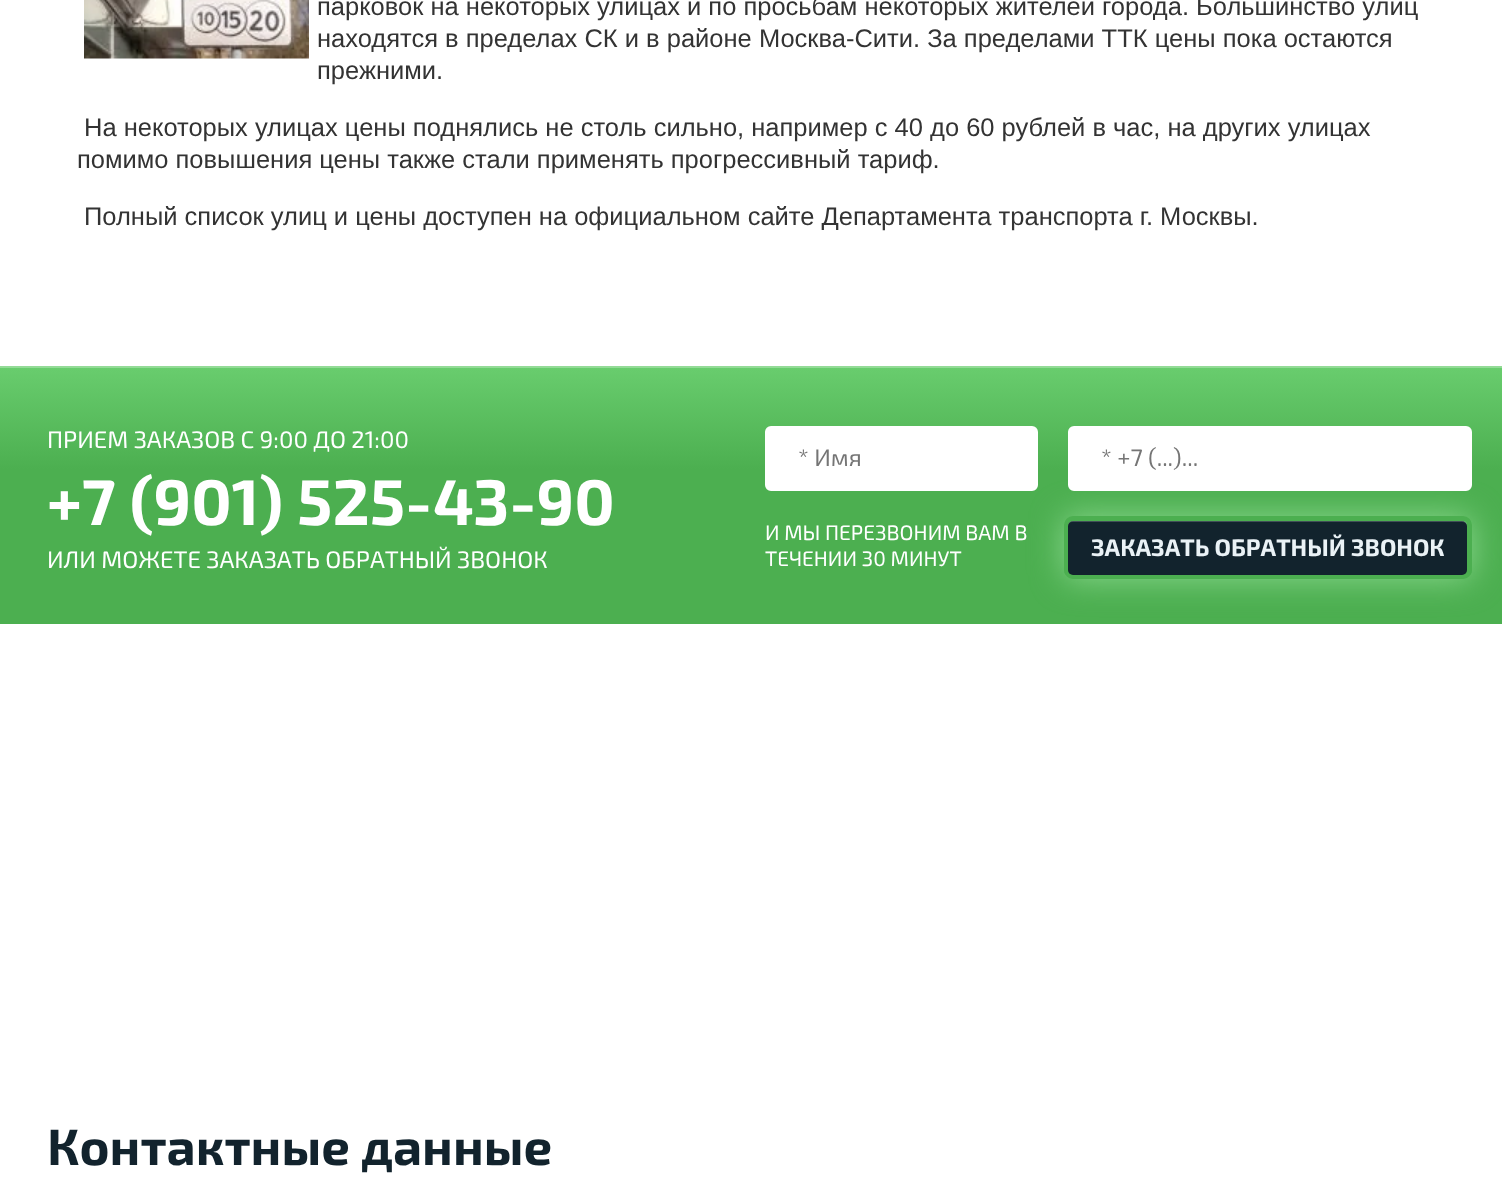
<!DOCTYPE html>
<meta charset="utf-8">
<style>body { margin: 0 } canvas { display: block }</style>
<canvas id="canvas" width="1502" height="1179"></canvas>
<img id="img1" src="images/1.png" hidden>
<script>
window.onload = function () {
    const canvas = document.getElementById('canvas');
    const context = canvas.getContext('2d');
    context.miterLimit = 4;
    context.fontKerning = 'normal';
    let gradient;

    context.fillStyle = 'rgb(255, 255, 255)';
    context.fillRect(0, 0, 1502, 1179);
    context.drawImage(document.getElementById('img1'), 84, 0, 225, 59);
    gradient = context.createLinearGradient(752, 366, 752, 624);
    gradient.addColorStop(0, 'rgb(105, 205, 110)');
    gradient.addColorStop(0.4, 'rgb(76, 175, 80)');
    context.fillStyle = gradient;
    context.fillRect(0, 368, 1502, 256);
    context.fillStyle = 'rgb(147, 219, 151)';
    context.fillRect(0, 366, 1502, 2);
    context.fillStyle = 'rgb(137, 214, 140)';
    context.filter = 'blur(16px)';
    context.beginPath();
    context.roundRect(1064, 516, 408, 63, 9);
    context.fill();
    context.filter = 'none';
    context.fillStyle = 'rgb(255, 255, 255)';
    context.beginPath();
    context.roundRect(766.5, 427.5, 270, 62, 4.5);
    context.fill();
    context.strokeStyle = 'rgb(255, 255, 255)';
    context.lineWidth = 3;
    context.stroke();
    context.beginPath();
    context.roundRect(1069.5, 427.5, 401, 62, 4.5);
    context.fill();
    context.stroke();
    context.save();
    context.beginPath();
    context.roundRect(1064, 516, 408, 63, 9);
    context.clip();
    gradient = context.createLinearGradient(1268, 521, 1268, 575);
    gradient.addColorStop(0, 'rgb(110, 211, 116)');
    gradient.addColorStop(1, 'rgb(76, 175, 80)');
    context.fillStyle = gradient;
    context.fillRect(1064, 521, 408, 54);
    context.restore();
    context.beginPath();
    context.roundRect(1066.5, 518.5, 403, 58, 6.5);
    context.strokeStyle = 'rgb(76, 175, 80)';
    context.lineWidth = 5;
    context.stroke();
    context.fillStyle = 'rgb(18, 35, 45)';
    context.beginPath();
    context.roundRect(1068, 521, 399, 54, 5);
    context.fill();
    context.fillStyle = 'rgba(255, 255, 255, 0.2)';
    context.beginPath();
    context.moveTo(1072, 522);
    context.lineTo(1462, 522);
    context.bezierCurveTo(1465, 522, 1467, 524, 1467, 526);
    context.bezierCurveTo(1467, 523, 1465, 521, 1462, 521);
    context.lineTo(1073, 521);
    context.bezierCurveTo(1070, 521, 1068, 523, 1068, 526);
    context.bezierCurveTo(1068, 524, 1070, 522, 1072, 522);
    context.closePath();
    context.fill();
    context.font = '25.5px Liberation Sans';
    context.fillStyle = 'rgb(51, 51, 51)';
    context.fillText('парковок на некоторых улицах и по просьбам некоторых жителей города. Большинство улиц', 317, 15);
    context.fillText('находятся в пределах СК и в районе Москва-Сити. За пределами ТТК цены пока остаются', 317, 47);
    context.fillText('прежними.', 317, 79);
    context.fillText('На некоторых улицах цены поднялись не столь сильно, например с 40 до 60 рублей в час, на других улицах', 84, 136);
    context.fillText('помимо повышения цены также стали применять прогрессивный тариф.', 77, 168);
    context.fillText('Полный список улиц и цены доступен на официальном сайте Департамента транспорта г. Москвы.', 84, 225);
    context.font = '24px "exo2"';
    context.fillStyle = 'rgb(255, 255, 255)';
    context.fillText('ПРИЕМ ЗАКАЗОВ С 9:00 ДО 21:00', 47, 448);
    context.font = 'bold 64.5px "exo2"';
    context.fillText('+7 (901) 525-43-90', 47, 525);
    context.font = '24px "exo2"';
    context.fillText('ИЛИ МОЖЕТЕ ЗАКАЗАТЬ ОБРАТНЫЙ ЗВОНОК', 47, 568);
    context.fillStyle = 'rgb(117, 117, 117)';
    context.fillText('* Имя', 798, 466);
    context.fillText('* +7 (...)...', 1101, 466);
    context.font = '21px "exo2"';
    context.fillStyle = 'rgb(255, 255, 255)';
    context.fillText('И МЫ ПЕРЕЗВОНИМ ВАМ В', 765, 540);
    context.fillText('ТЕЧЕНИИ 30 МИНУТ', 765, 566);
    context.font = 'bold 24px "exo2"';
    context.fillStyle = 'rgb(234, 242, 246)';
    context.fillText('ЗАКАЗАТЬ ОБРАТНЫЙ ЗВОНОК', 1091, 556);
    context.font = 'bold 51px "exo2"';
    context.fillStyle = 'rgb(18, 35, 45)';
    context.fillText('Контактные данные', 47, 1165);
};
</script>
